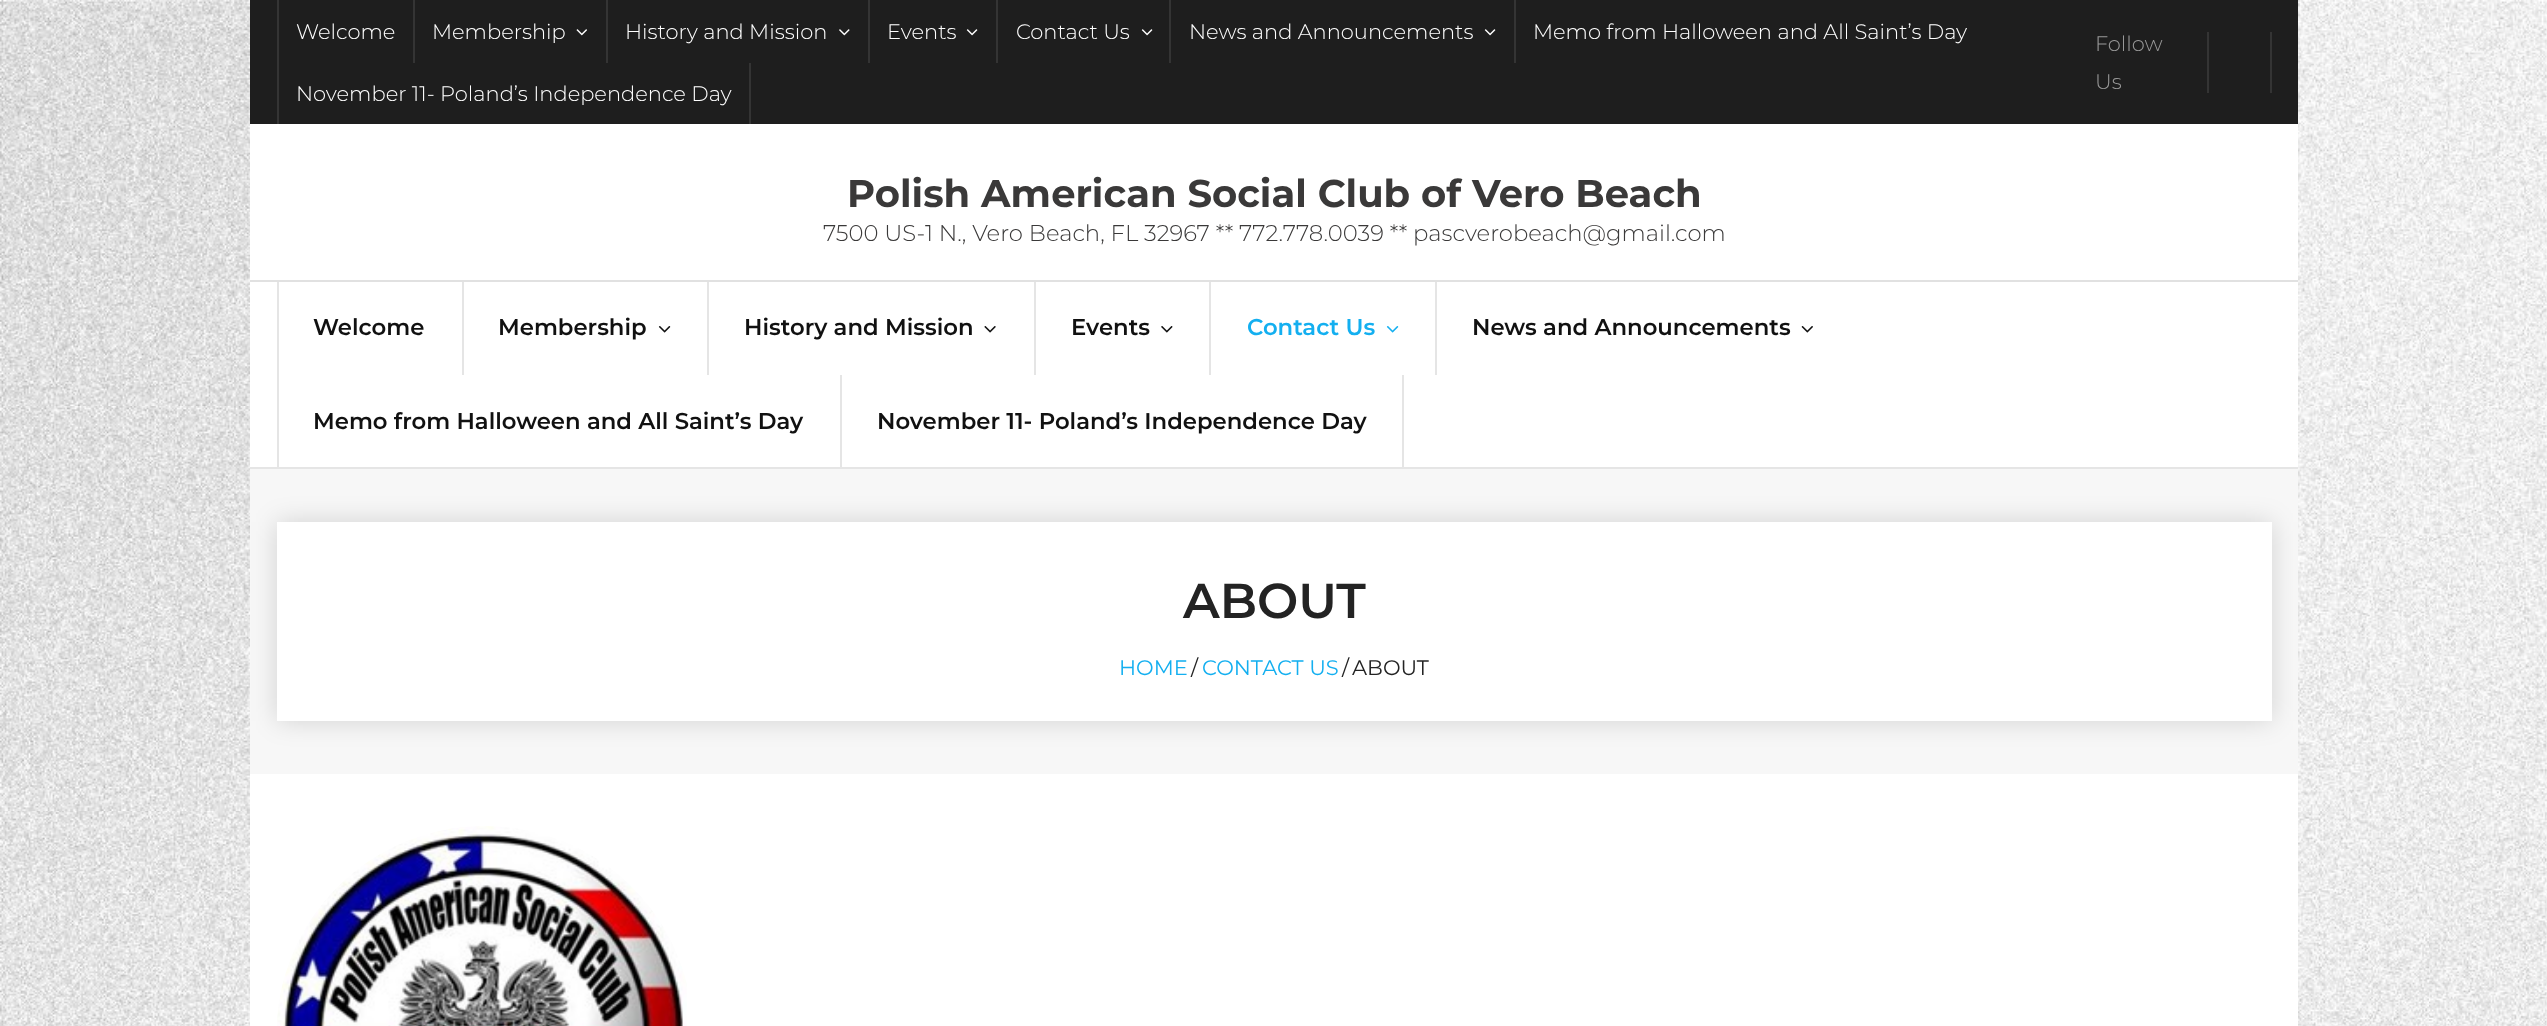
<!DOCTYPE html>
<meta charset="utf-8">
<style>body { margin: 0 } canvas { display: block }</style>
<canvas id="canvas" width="2547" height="1026"></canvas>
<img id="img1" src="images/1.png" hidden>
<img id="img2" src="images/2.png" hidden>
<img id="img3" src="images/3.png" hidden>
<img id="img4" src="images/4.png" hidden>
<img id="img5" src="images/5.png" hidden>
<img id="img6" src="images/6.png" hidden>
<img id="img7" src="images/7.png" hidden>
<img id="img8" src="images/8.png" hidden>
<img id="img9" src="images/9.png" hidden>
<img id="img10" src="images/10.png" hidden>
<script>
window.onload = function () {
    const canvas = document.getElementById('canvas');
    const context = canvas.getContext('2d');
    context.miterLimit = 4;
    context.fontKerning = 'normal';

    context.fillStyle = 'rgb(255, 255, 255)';
    context.fillRect(0, 0, 2547, 1026);
    context.drawImage(document.getElementById('img1'), 0, 0, 2547, 1026);
    context.fillRect(250, 124, 2048, 902);
    context.fillStyle = 'rgb(30, 30, 30)';
    context.fillRect(250, 0, 2048, 124);
    context.fillStyle = 'rgb(52, 52, 52)';
    context.fillRect(277, 0, 2, 124);
    context.fillRect(413, 0, 2, 63);
    context.drawImage(document.getElementById('img2'), 576, 29, 11, 7);
    context.fillRect(606, 0, 2, 63);
    context.drawImage(document.getElementById('img3'), 839, 29, 11, 7);
    context.fillRect(868, 0, 2, 63);
    context.drawImage(document.getElementById('img4'), 966, 29, 12, 7);
    context.fillRect(996, 0, 2, 63);
    context.drawImage(document.getElementById('img4'), 1141, 29, 12, 7);
    context.fillRect(1169, 0, 2, 63);
    context.drawImage(document.getElementById('img4'), 1484, 29, 12, 7);
    context.fillRect(1514, 0, 2, 63);
    context.fillRect(749, 63, 2, 61);
    context.fillRect(2270, 32, 2, 61);
    context.fillRect(2207, 32, 2, 61);
    context.fillStyle = 'rgb(229, 229, 229)';
    context.fillRect(250, 467, 2048, 2);
    context.fillStyle = 'rgb(225, 225, 225)';
    context.fillRect(250, 280, 2048, 2);
    context.fillStyle = 'rgb(229, 229, 229)';
    context.fillRect(277, 282, 2, 185);
    context.fillRect(462, 282, 2, 93);
    context.drawImage(document.getElementById('img5'), 658, 326, 13, 7);
    context.fillRect(707, 282, 2, 93);
    context.drawImage(document.getElementById('img6'), 984, 326, 12, 7);
    context.fillRect(1034, 282, 2, 93);
    context.drawImage(document.getElementById('img7'), 1161, 326, 12, 7);
    context.fillRect(1209, 282, 2, 93);
    context.drawImage(document.getElementById('img8'), 1386, 326, 13, 7);
    context.fillRect(1435, 282, 2, 93);
    context.drawImage(document.getElementById('img9'), 1801, 326, 12, 7);
    context.fillRect(1402, 375, 2, 92);
    context.fillRect(840, 375, 2, 92);
    context.fillStyle = 'rgb(247, 247, 247)';
    context.fillRect(250, 469, 2048, 305);
    context.fillStyle = 'rgba(0, 0, 0, 0.15)';
    context.filter = 'blur(13px)';
    context.beginPath();
    context.rect(277, 522, 1995, 199);
    context.fill();
    context.filter = 'none';
    context.fillStyle = 'rgb(255, 255, 255)';
    context.fillRect(277, 522, 1995, 199);
    context.drawImage(document.getElementById('img10'), 277, 826, 410, 200);
    context.font = '300 21px Montserrat';
    context.fillText('Welcome', 296, 39);
    context.fillText('Membership', 432, 39);
    context.fillText('History and Mission', 625, 39);
    context.fillText('Events', 887, 39);
    context.fillText('Contact Us', 1016, 39);
    context.fillText('News and Announcements', 1189, 39);
    context.fillText('Memo from Halloween and All Saint’s Day', 1533, 39);
    context.fillText('November 11- Poland’s Independence Day', 296, 101);
    context.fillStyle = 'rgb(153, 153, 153)';
    context.fillText('Follow', 2095, 51);
    context.fillText('Us', 2095, 89);
    context.font = 'bold 38.5px Montserrat';
    context.fillStyle = 'rgb(58, 57, 57)';
    context.fillText('Polish American Social Club of Vero Beach', 847, 207);
    context.font = '300 22.75px Montserrat';
    context.fillText('7500 US-1 N., Vero Beach, FL 32967 ** 772.778.0039 ** pascverobeach@gmail.com', 823, 241);
    context.font = '600 22.75px Montserrat';
    context.fillStyle = 'rgb(17, 17, 17)';
    context.fillText('Welcome', 313, 335);
    context.fillText('Membership', 498, 335);
    context.fillText('History and Mission', 744, 335);
    context.fillText('Events', 1071, 335);
    context.fillStyle = 'rgb(19, 175, 240)';
    context.fillText('Contact Us', 1247, 335);
    context.fillStyle = 'rgb(17, 17, 17)';
    context.fillText('News and Announcements', 1472, 335);
    context.fillText('Memo from Halloween and All Saint’s Day', 313, 429);
    context.fillText('November 11- Poland’s Independence Day', 877, 429);
    context.font = '600 49px Montserrat';
    context.fillStyle = 'rgb(35, 35, 35)';
    context.fillText('ABOUT', 1183, 618);
    context.font = '21px Montserrat';
    context.fillStyle = 'rgb(19, 175, 240)';
    context.fillText('HOME', 1119, 675);
    context.fillStyle = 'rgb(35, 35, 35)';
    context.fillText('/', 1191, 675);
    context.fillStyle = 'rgb(19, 175, 240)';
    context.fillText('CONTACT US', 1202, 675);
    context.fillStyle = 'rgb(35, 35, 35)';
    context.fillText('/', 1342, 675);
    context.fillText('ABOUT', 1352, 675);
};
</script>
